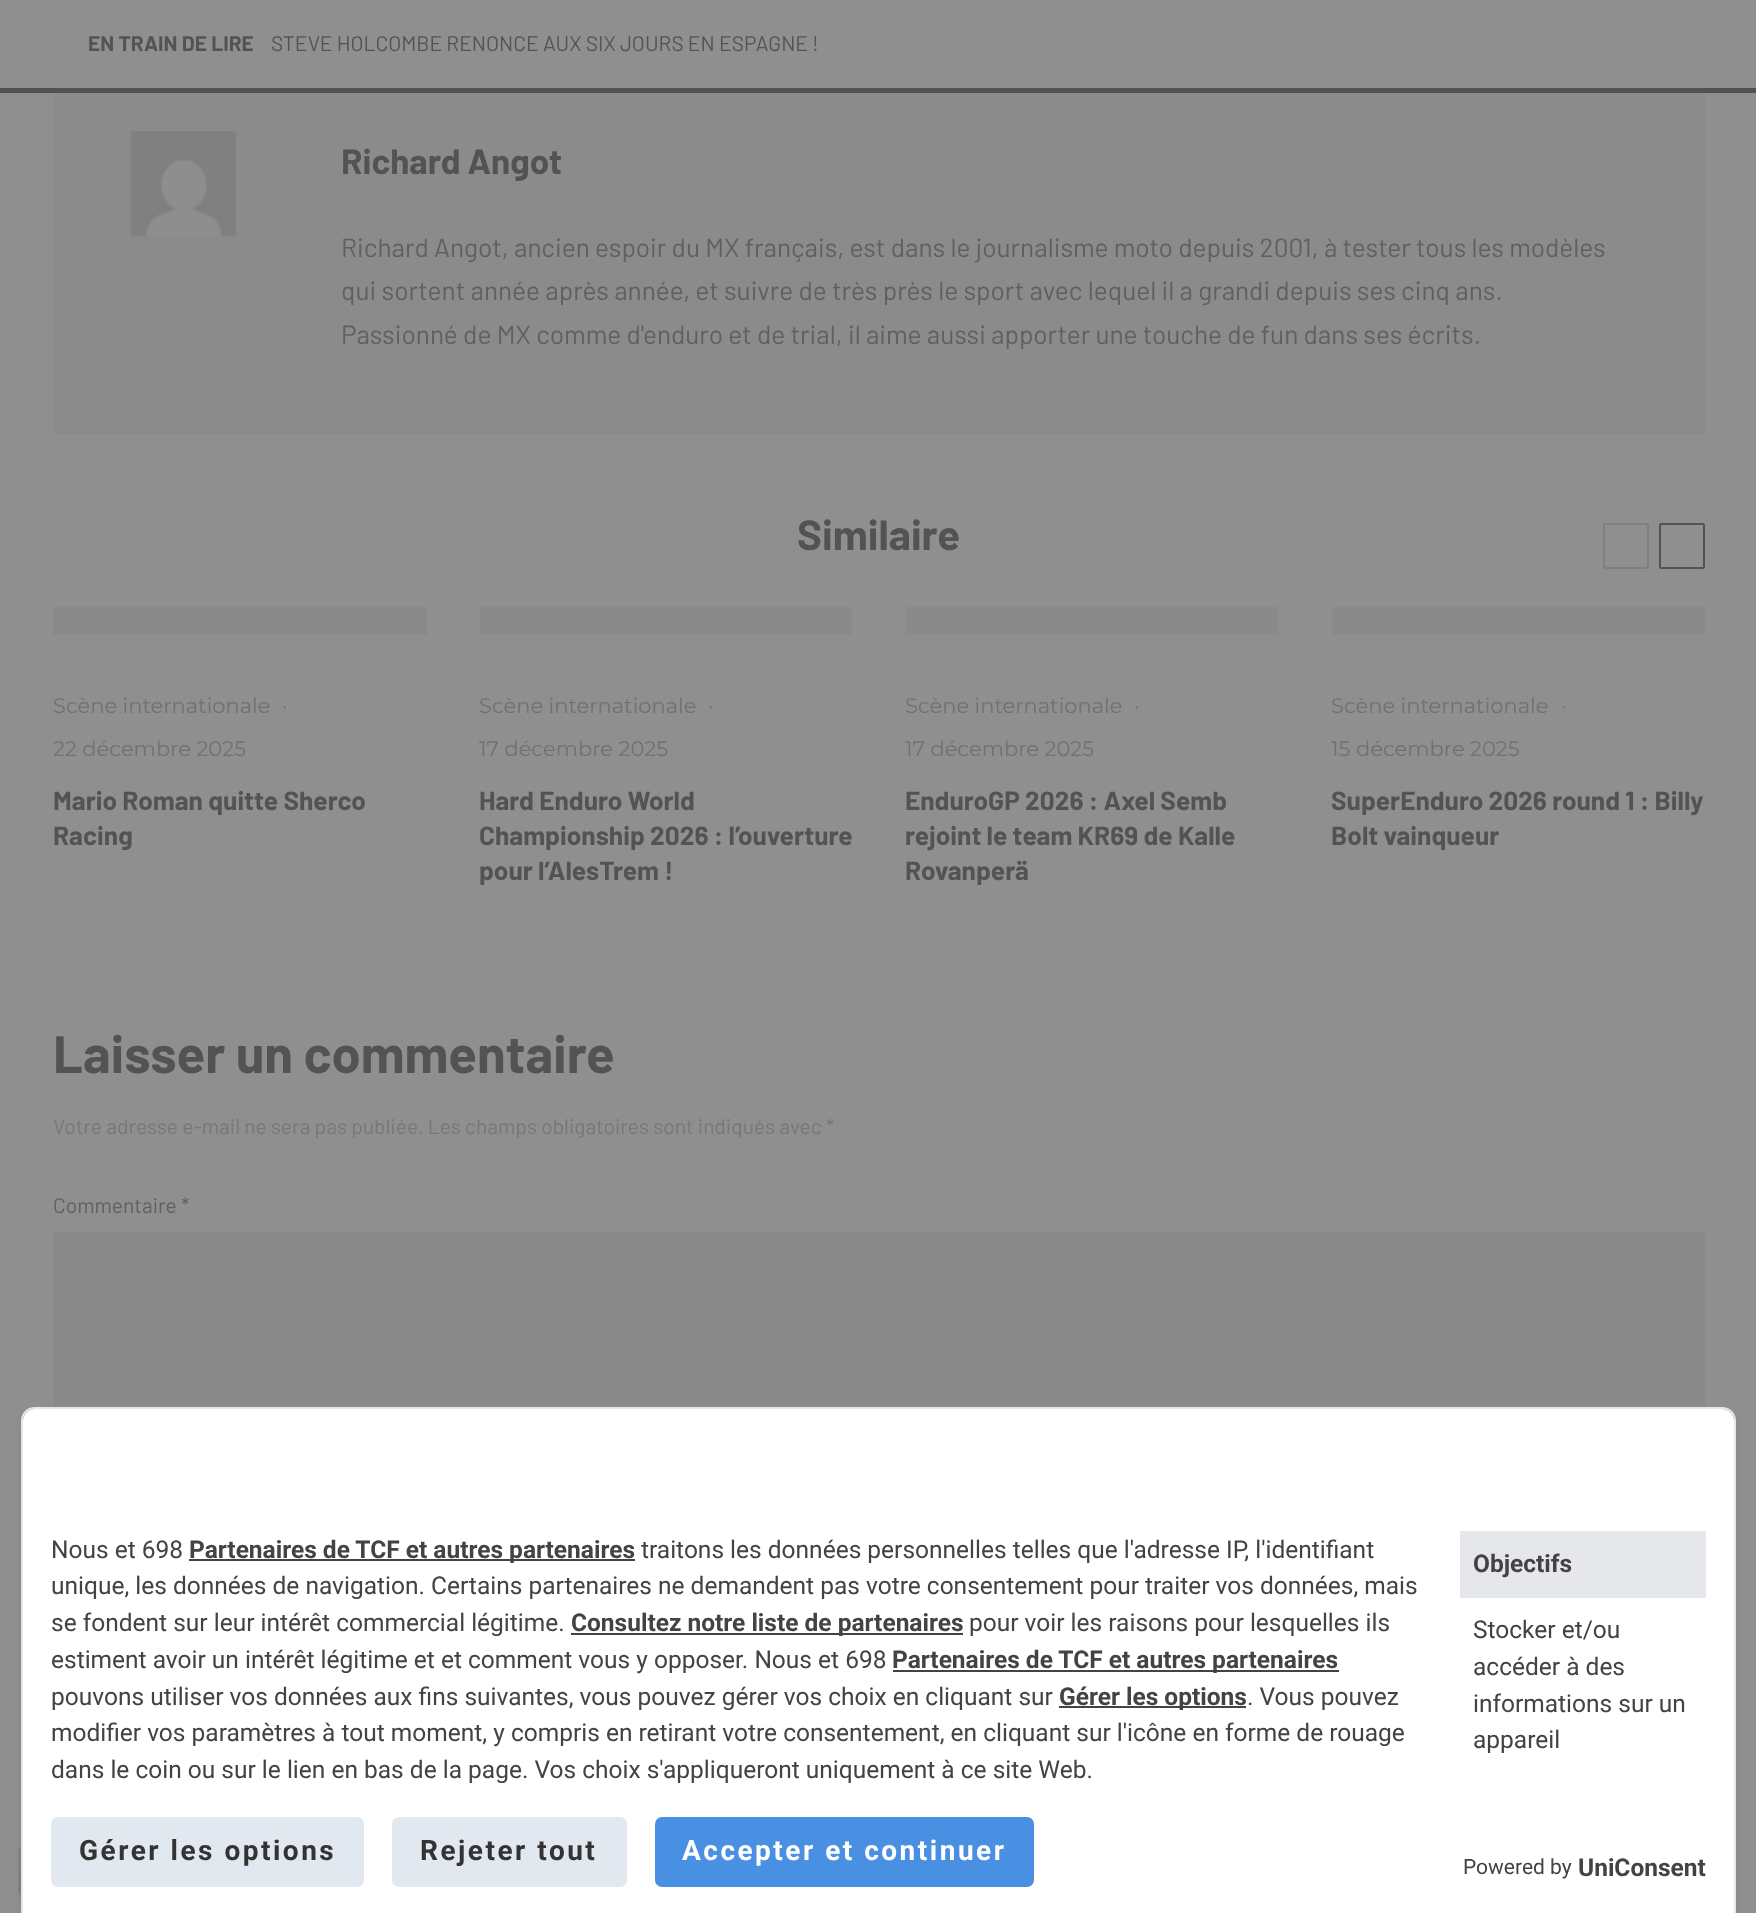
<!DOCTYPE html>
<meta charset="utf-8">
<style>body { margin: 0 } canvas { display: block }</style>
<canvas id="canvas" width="1756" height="1913"></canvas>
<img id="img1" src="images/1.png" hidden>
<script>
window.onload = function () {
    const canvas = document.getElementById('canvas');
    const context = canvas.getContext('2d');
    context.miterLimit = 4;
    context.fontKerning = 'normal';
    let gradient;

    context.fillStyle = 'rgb(143, 143, 143)';
    context.fillRect(0, 0, 1756, 1913);
    context.fillStyle = 'rgb(81, 81, 81)';
    context.fillRect(0, 88, 1756, 5);
    context.fillStyle = 'rgb(139, 139, 139)';
    context.fillRect(53, 93, 1652, 341);
    context.drawImage(document.getElementById('img1'), 131, 131, 106, 106);
    context.beginPath();
    context.roundRect(1604, 524, 44, 44, 1);
    context.strokeStyle = 'rgb(128, 128, 128)';
    context.lineWidth = 2;
    context.stroke();
    context.beginPath();
    context.roundRect(1660, 524, 44, 44, 1);
    context.strokeStyle = 'rgb(83, 83, 83)';
    context.stroke();
    context.fillStyle = 'rgb(138, 138, 138)';
    context.fillRect(53, 607, 374, 28);
    context.fillRect(480, 607, 372, 28);
    context.fillRect(905, 607, 374, 28);
    context.fillRect(1332, 607, 373, 28);
    context.fillRect(53, 1232, 1652, 175);
    gradient = context.createLinearGradient(22, 1900, 66, 1841);
    gradient.addColorStop(0, 'rgb(129, 129, 129)');
    gradient.addColorStop(1, 'rgb(135, 135, 135)');
    context.fillStyle = gradient;
    context.beginPath();
    context.roundRect(18, 1845, 52, 52, 7);
    context.fill();
    context.fillStyle = 'rgba(0, 0, 0, 0.1)';
    context.filter = 'blur(5px)';
    context.beginPath();
    context.roundRect(23, 1416, 1711, 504, 12);
    context.fill();
    context.filter = 'none';
    context.fillStyle = 'rgb(255, 255, 255)';
    context.beginPath();
    context.moveTo(35, 1409);
    context.lineTo(1722, 1409);
    context.bezierCurveTo(1728.5, 1409, 1734, 1414.5, 1734, 1421);
    context.lineTo(1734, 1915);
    context.lineTo(23, 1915);
    context.lineTo(23, 1421);
    context.bezierCurveTo(23, 1414.5, 28.5, 1409, 35, 1409);
    context.closePath();
    context.fill();
    context.fillStyle = 'rgb(226, 232, 240)';
    context.beginPath();
    context.moveTo(35, 1407);
    context.lineTo(1722, 1407);
    context.bezierCurveTo(1730, 1407, 1736, 1413, 1736, 1421);
    context.lineTo(1736, 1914);
    context.lineTo(21, 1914);
    context.lineTo(21, 1421);
    context.bezierCurveTo(21, 1413, 27, 1407, 35, 1407);
    context.closePath();
    context.moveTo(35, 1409);
    context.lineTo(1722, 1409);
    context.bezierCurveTo(1729, 1409, 1734, 1414, 1734, 1421);
    context.lineTo(1734, 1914);
    context.lineTo(23, 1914);
    context.lineTo(23, 1421);
    context.bezierCurveTo(23, 1414, 28, 1409, 35, 1409);
    context.closePath();
    context.fill('evenodd');
    context.fillStyle = 'rgb(67, 67, 67)';
    context.fillRect(189, 1559, 446, 2);
    context.fillRect(571, 1633, 392, 2);
    context.fillRect(893, 1670, 446, 2);
    context.fillRect(1059, 1706, 187, 2);
    context.fillStyle = 'rgb(229, 231, 235)';
    context.fillRect(1460, 1531, 246, 65);
    context.fillStyle = 'rgb(226, 232, 240)';
    context.fillRect(1460, 1596, 246, 2);
    context.beginPath();
    context.roundRect(51, 1817, 313, 70, 7);
    context.fill();
    context.beginPath();
    context.roundRect(392, 1817, 235, 70, 7);
    context.fill();
    context.fillStyle = 'rgb(74, 144, 226)';
    context.beginPath();
    context.roundRect(655, 1817, 379, 70, 7);
    context.fill();
    context.font = 'bold 21px Barlow';
    context.fillStyle = 'rgb(83, 83, 83)';
    context.fillText('EN TRAIN DE LIRE', 88, 51);
    context.font = '21px Barlow';
    context.fillText('STEVE HOLCOMBE RENONCE AUX SIX JOURS EN ESPAGNE !', 271, 51);
    context.font = 'bold 35px Barlow';
    context.fillText('Richard Angot', 341, 174);
    context.font = '26.25px Barlow';
    context.fillStyle = 'rgb(96, 96, 96)';
    context.fillText('Richard Angot, ancien espoir du MX français, est dans le journalisme moto depuis 2001, à tester tous les modèles', 341, 257);
    context.fillText('qui sortent année après année, et suivre de très près le sport avec lequel il a grandi depuis ses cinq ans.', 341, 300);
    context.fillText('Passionné de MX comme d\'enduro et de trial, il aime aussi apporter une touche de fun dans ses écrits.', 341, 344);
    context.font = 'bold 42px Barlow';
    context.fillStyle = 'rgb(83, 83, 83)';
    context.fillText('Similaire', 797, 550);
    context.font = '21px Montserrat';
    context.fillStyle = 'rgb(113, 113, 113)';
    context.fillText('Scène internationale', 53, 713);
    context.fillText('·', 282, 713);
    context.fillText('22 décembre 2025', 53, 756);
    context.font = 'bold 26.25px Barlow';
    context.fillStyle = 'rgb(83, 83, 83)';
    context.fillText('Mario Roman quitte Sherco', 53, 810);
    context.fillText('Racing', 53, 845);
    context.font = '21px Montserrat';
    context.fillStyle = 'rgb(113, 113, 113)';
    context.fillText('Scène internationale', 479, 713);
    context.fillText('·', 708, 713);
    context.fillText('17 décembre 2025', 479, 756);
    context.font = 'bold 26.25px Barlow';
    context.fillStyle = 'rgb(83, 83, 83)';
    context.fillText('Hard Enduro World', 479, 810);
    context.fillText('Championship 2026 : l’ouverture', 479, 845);
    context.fillText('pour l’AlesTrem !', 479, 880);
    context.font = '21px Montserrat';
    context.fillStyle = 'rgb(113, 113, 113)';
    context.fillText('Scène internationale', 905, 713);
    context.fillText('·', 1134, 713);
    context.fillText('17 décembre 2025', 905, 756);
    context.font = 'bold 26.25px Barlow';
    context.fillStyle = 'rgb(83, 83, 83)';
    context.fillText('EnduroGP 2026 : Axel Semb', 905, 810);
    context.fillText('rejoint le team KR69 de Kalle', 905, 845);
    context.fillText('Rovanperä', 905, 880);
    context.font = '21px Montserrat';
    context.fillStyle = 'rgb(113, 113, 113)';
    context.fillText('Scène internationale', 1331, 713);
    context.fillText('·', 1561, 713);
    context.fillText('15 décembre 2025', 1331, 756);
    context.font = 'bold 26.25px Barlow';
    context.fillStyle = 'rgb(83, 83, 83)';
    context.fillText('SuperEnduro 2026 round 1 : Billy', 1331, 810);
    context.fillText('Bolt vainqueur', 1331, 845);
    context.font = 'bold 52.5px Barlow';
    context.fillText('Laisser un commentaire', 53, 1073);
    context.font = '21px Barlow';
    context.fillStyle = 'rgb(119, 119, 119)';
    context.fillText('Votre adresse e-mail ne sera pas publiée. Les champs obligatoires sont indiqués avec *', 53, 1134);
    context.fillStyle = 'rgb(96, 96, 96)';
    context.fillText('Commentaire *', 53, 1213);
    context.font = '24.5px Roboto';
    context.fillStyle = 'rgb(67, 67, 67)';
    context.fillText('Nous et 698', 51, 1558);
    context.font = 'bold 24.5px Roboto';
    context.fillText('Partenaires de TCF et autres partenaires', 189, 1558);
    context.font = '24.5px Roboto';
    context.fillText('traitons les données personnelles telles que l\'adresse IP, l\'identifiant', 641, 1558);
    context.fillText('unique, les données de navigation. Certains partenaires ne demandent pas votre consentement pour traiter vos données, mais', 51, 1594);
    context.fillText('se fondent sur leur intérêt commercial légitime.', 51, 1631);
    context.font = 'bold 24.5px Roboto';
    context.fillText('Consultez notre liste de partenaires', 571, 1631);
    context.font = '24.5px Roboto';
    context.fillText('pour voir les raisons pour lesquelles ils', 969, 1631);
    context.fillText('estiment avoir un intérêt légitime et et comment vous y opposer. Nous et 698', 51, 1668);
    context.font = 'bold 24.5px Roboto';
    context.fillText('Partenaires de TCF et autres partenaires', 892, 1668);
    context.font = '24.5px Roboto';
    context.fillText('pouvons utiliser vos données aux fins suivantes, vous pouvez gérer vos choix en cliquant sur', 51, 1705);
    context.font = 'bold 24.5px Roboto';
    context.fillText('Gérer les options', 1059, 1705);
    context.font = '24.5px Roboto';
    context.fillText('. Vous pouvez', 1247, 1705);
    context.fillText('modifier vos paramètres à tout moment, y compris en retirant votre consentement, en cliquant sur l\'icône en forme de rouage', 51, 1741);
    context.fillText('dans le coin ou sur le lien en bas de la page. Vos choix s\'appliqueront uniquement à ce site Web.', 51, 1778);
    context.font = 'bold 24.5px Roboto';
    context.fillText('Objectifs', 1473, 1572);
    context.font = '24.5px Roboto';
    context.fillText('Stocker et/ou', 1473, 1638);
    context.fillText('accéder à des', 1473, 1675);
    context.fillText('informations sur un', 1473, 1712);
    context.fillText('appareil', 1473, 1748);
    context.letterSpacing = '2.5px';
    context.font = 'bold 28px Roboto';
    context.fillStyle = 'rgb(51, 51, 51)';
    context.fillText('Gérer les options', 79, 1860);
    context.fillText('Rejeter tout', 420, 1860);
    context.fillStyle = 'rgb(255, 255, 255)';
    context.fillText('Accepter et continuer', 682, 1860);
    context.letterSpacing = '0px';
    context.font = '21px Roboto';
    context.fillStyle = 'rgb(67, 67, 67)';
    context.fillText('Powered by', 1463, 1874);
    context.font = 'bold 24.5px Roboto';
    context.fillText('UniConsent', 1578, 1876);
};
</script>
